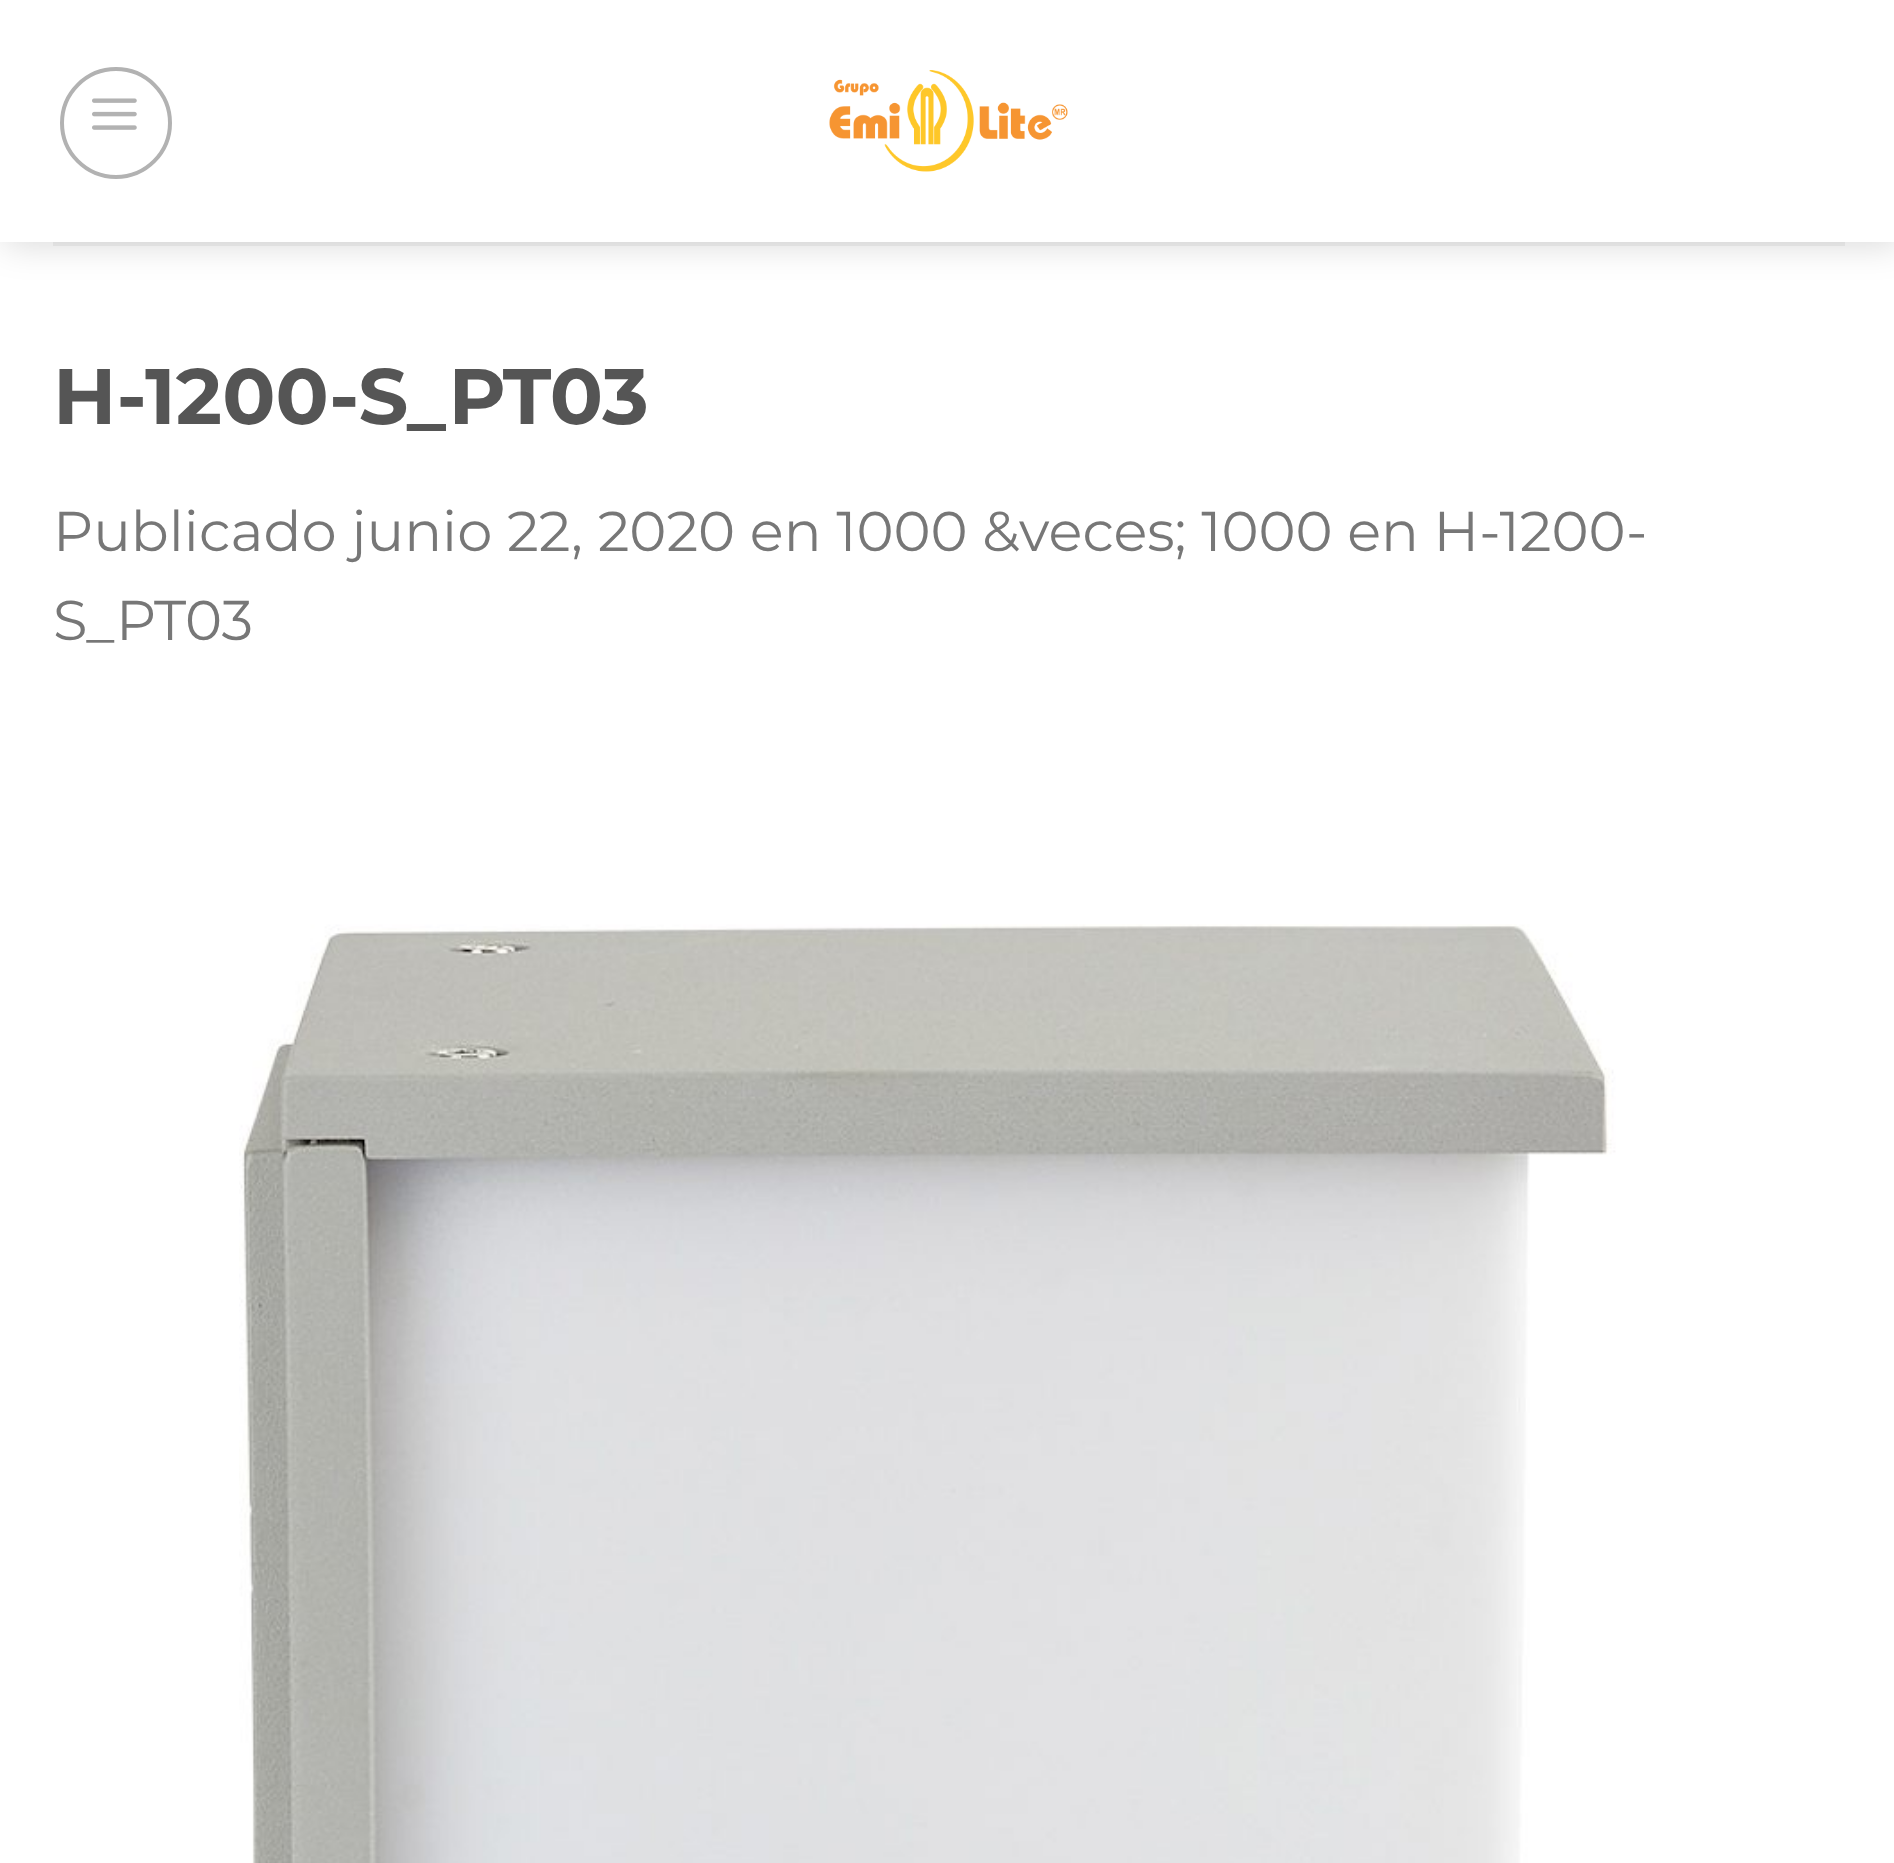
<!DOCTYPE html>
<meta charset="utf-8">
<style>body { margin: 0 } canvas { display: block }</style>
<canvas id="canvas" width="1894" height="1863"></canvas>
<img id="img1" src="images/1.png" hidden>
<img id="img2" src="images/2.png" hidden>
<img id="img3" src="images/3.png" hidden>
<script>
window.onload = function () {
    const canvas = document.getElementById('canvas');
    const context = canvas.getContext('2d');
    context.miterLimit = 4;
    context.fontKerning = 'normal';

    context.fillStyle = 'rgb(255, 255, 255)';
    context.fillRect(0, 0, 1894, 1863);
    context.save();
    context.beginPath();
    context.moveTo(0, 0);
    context.lineTo(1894, 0);
    context.lineTo(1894, 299);
    context.lineTo(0, 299);
    context.closePath();
    context.moveTo(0, 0);
    context.lineTo(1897, 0);
    context.lineTo(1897, 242);
    context.lineTo(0, 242);
    context.closePath();
    context.clip('evenodd');
    context.fillStyle = 'rgba(0, 0, 0, 0.15)';
    context.filter = 'blur(17.5px)';
    context.beginPath();
    context.rect(4, 4, 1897, 241);
    context.fill();
    context.filter = 'none';
    context.restore();
    context.beginPath();
    context.arc(116, 123, 54, 0, 2 * Math.PI);
    context.strokeStyle = 'rgb(178, 178, 178)';
    context.lineWidth = 4;
    context.stroke();
    context.drawImage(document.getElementById('img1'), 92, 98, 45, 32);
    context.drawImage(document.getElementById('img2'), 829, 70, 239, 102);
    context.fillStyle = 'rgba(119, 119, 119, 0.1)';
    context.fillRect(53, 242, 1792, 4);
    context.fillStyle = 'rgba(255, 255, 255, 0.9)';
    context.fillRect(0, 241, 1894, 1);
    context.drawImage(document.getElementById('img3'), 239, 924, 1377, 939);
    context.font = 'bold 78.5px Montserrat';
    context.fillStyle = 'rgb(85, 85, 85)';
    context.fillText('H-1200-S_PT03', 53, 424);
    context.font = '56px Montserrat';
    context.fillStyle = 'rgb(119, 119, 119)';
    context.fillText('Publicado junio 22, 2020 en 1000 &veces; 1000 en H-1200-', 53, 551);
    context.fillText('S_PT03', 53, 640);
};
</script>
